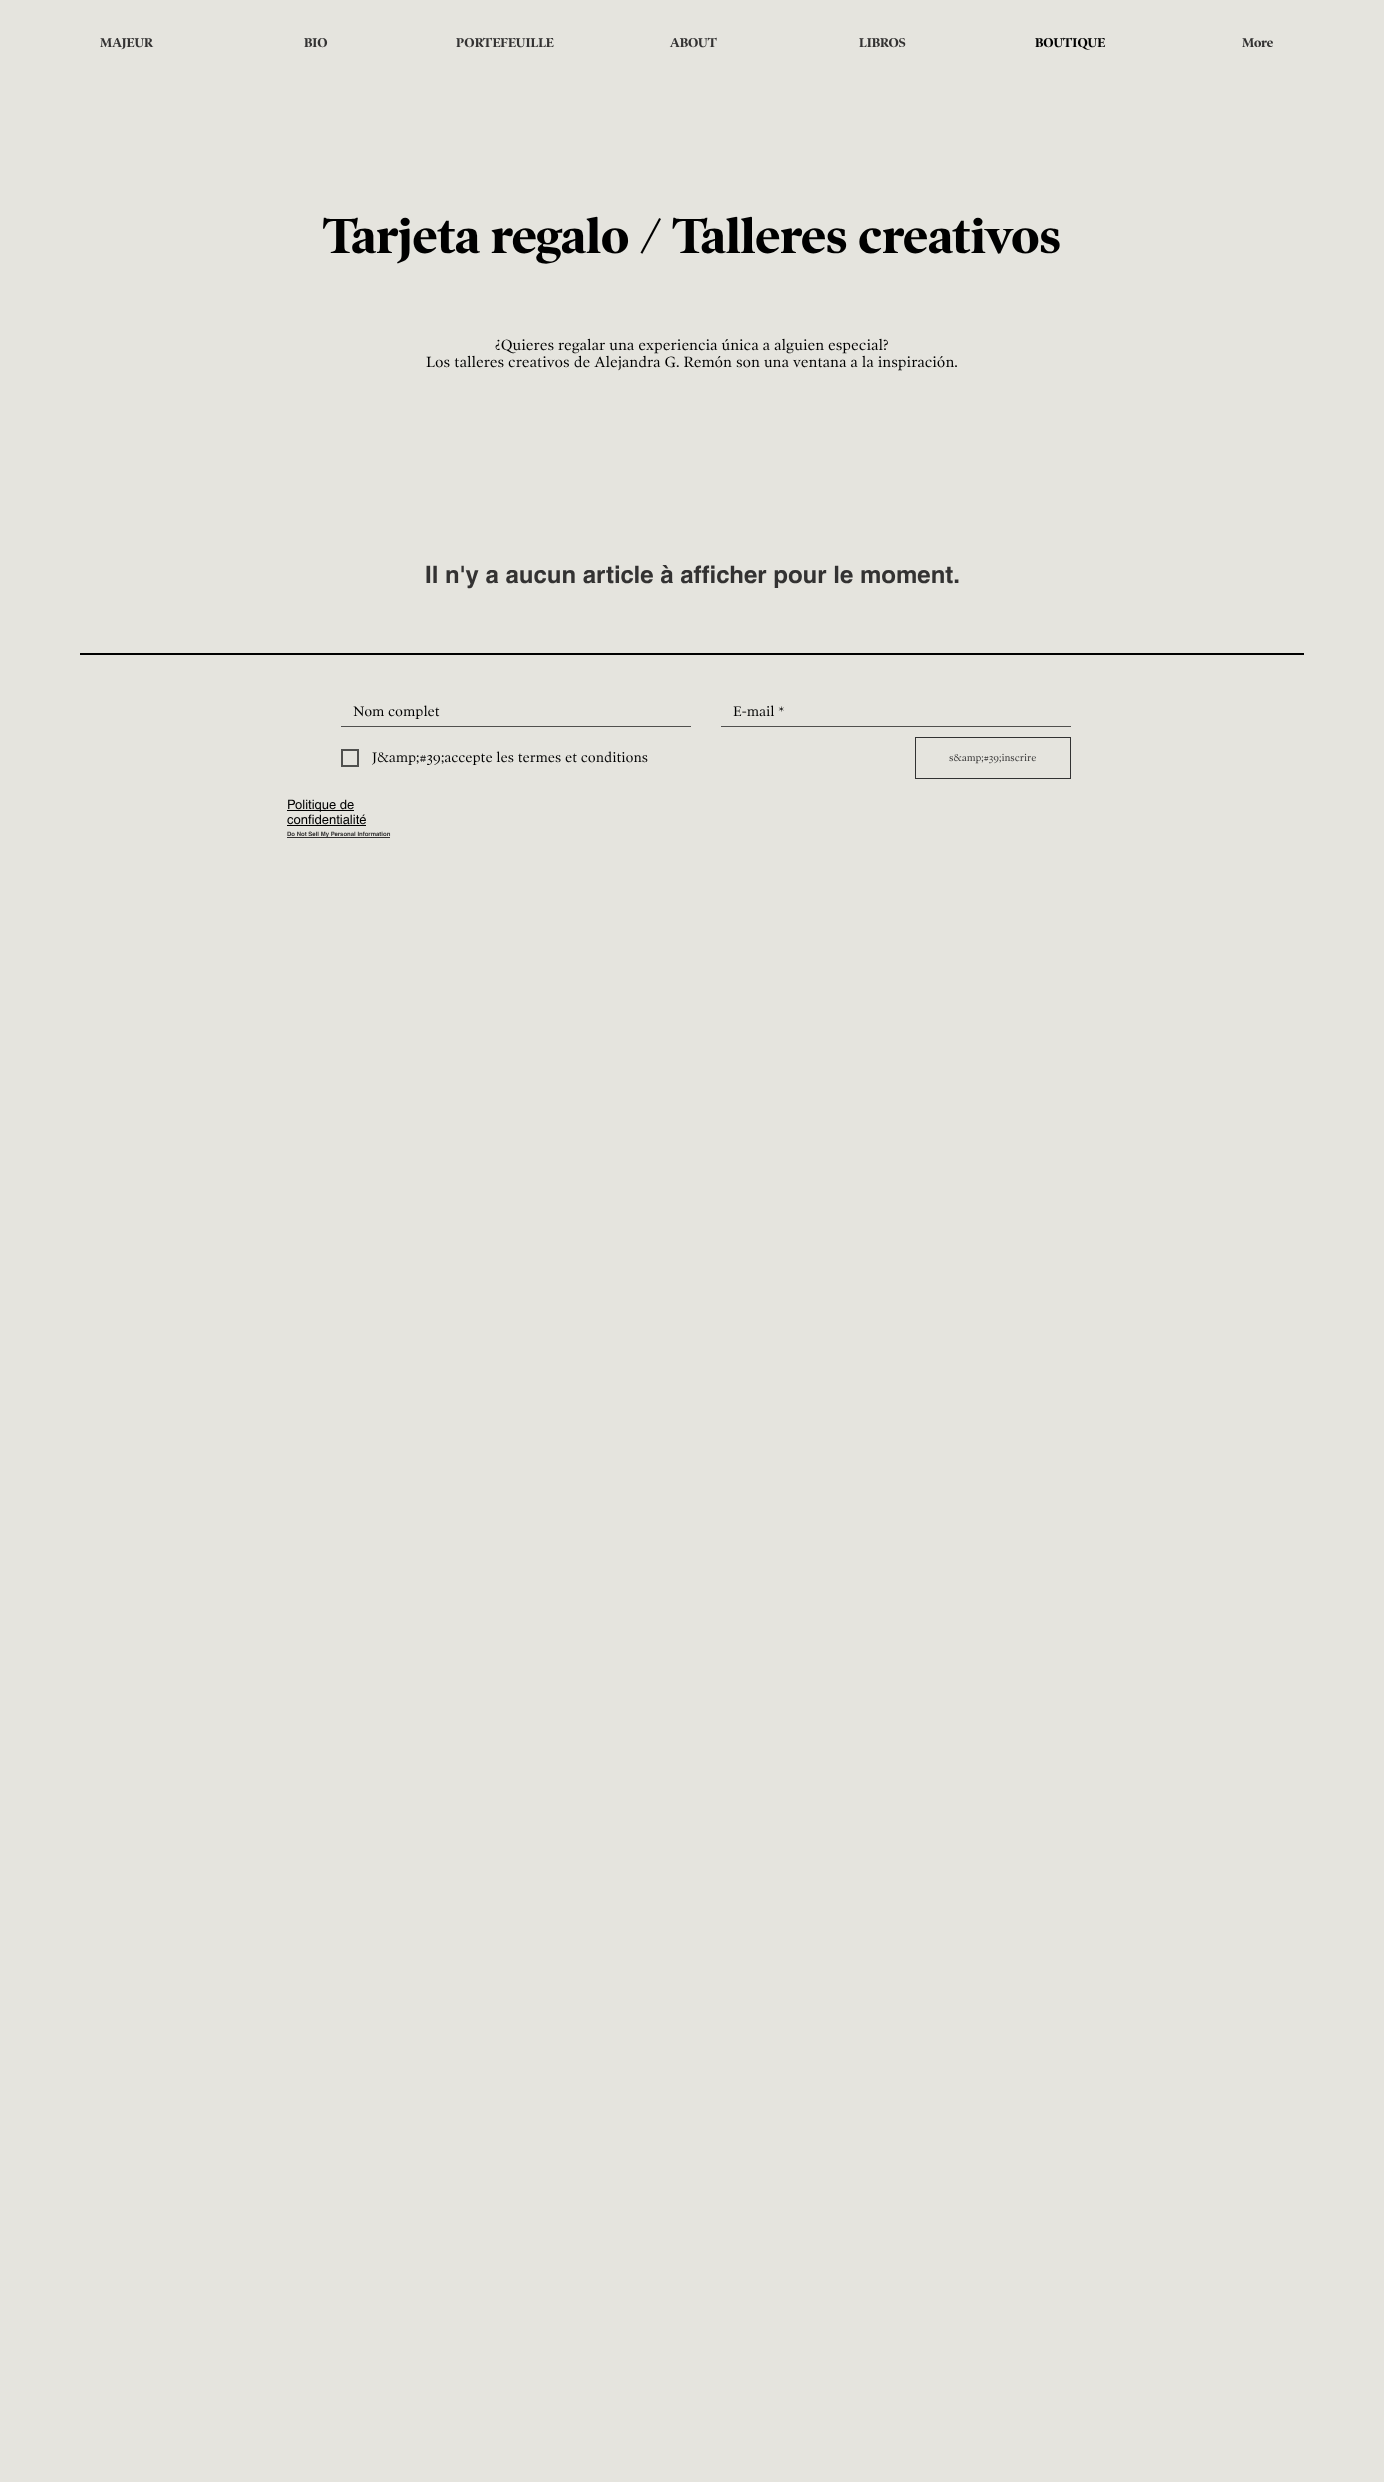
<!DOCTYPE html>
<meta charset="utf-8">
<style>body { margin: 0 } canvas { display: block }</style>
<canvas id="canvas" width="1384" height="2482"></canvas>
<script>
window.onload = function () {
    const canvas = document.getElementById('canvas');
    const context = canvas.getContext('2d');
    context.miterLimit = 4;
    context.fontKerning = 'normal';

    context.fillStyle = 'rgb(229, 228, 222)';
    context.fillRect(0, 0, 1384, 2482);
    context.fillStyle = 'rgb(0, 0, 0)';
    context.fillRect(80, 653, 1224, 2);
    context.fillStyle = 'rgb(80, 80, 78)';
    context.fillRect(341, 726, 350, 1);
    context.fillRect(721, 726, 350, 1);
    context.strokeStyle = 'rgb(80, 80, 78)';
    context.lineWidth = 2;
    context.strokeRect(342, 750, 16, 16);
    context.strokeStyle = 'rgb(50, 50, 50)';
    context.lineWidth = 1;
    context.strokeRect(915.5, 737.5, 155, 41);
    context.fillStyle = 'rgb(0, 0, 0)';
    context.fillRect(287, 810, 67, 1);
    context.fillRect(287, 825, 79, 1);
    context.fillStyle = 'rgb(51, 50, 50)';
    context.fillRect(287, 837, 103, 1);
    context.font = 'bold 13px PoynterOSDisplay';
    context.fillText('MAJEUR', 100, 47);
    context.fillText('BIO', 304, 47);
    context.fillText('PORTEFEUILLE', 456, 47);
    context.fillText('ABOUT', 670, 47);
    context.fillText('LIBROS', 859, 47);
    context.fillStyle = 'rgb(0, 0, 0)';
    context.fillText('BOUTIQUE', 1035, 47);
    context.fillStyle = 'rgb(51, 50, 50)';
    context.fillText('More', 1242, 47);
    context.font = 'bold 50px PoynterOSDisplay';
    context.fillStyle = 'rgb(0, 0, 0)';
    context.fillText('Tarjeta regalo / Talleres creativos', 323, 253);
    context.font = '15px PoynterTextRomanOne';
    context.fillText('¿Quieres regalar una experiencia única a alguien especial?', 495, 350);
    context.fillText('Los talleres creativos de Alejandra G. Remón son una ventana a la inspiración.', 426, 367);
    context.font = 'bold 24px helvetica';
    context.fillStyle = 'rgb(51, 50, 50)';
    context.fillText('Il n\'y a aucun article à afficher pour le moment.', 425, 583);
    context.font = '14px PoynterTextRomanOne';
    context.fillStyle = 'rgb(0, 0, 0)';
    context.fillText('Nom complet', 353, 716);
    context.fillText('E-mail *', 733, 716);
    context.fillText('J&amp;#39;accepte les termes et conditions', 372, 762);
    context.font = '10px PoynterTextRomanOne';
    context.fillStyle = 'rgb(51, 50, 50)';
    context.fillText('s&amp;#39;inscrire', 949, 761);
    context.font = '13px helvetica';
    context.fillStyle = 'rgb(0, 0, 0)';
    context.fillText('Politique de', 287, 809);
    context.fillText('confidentialité', 287, 824);
    context.font = 'bold 6px helvetica';
    context.fillStyle = 'rgb(51, 50, 50)';
    context.fillText('Do Not Sell My Personal Information', 287, 836);
};
</script>
